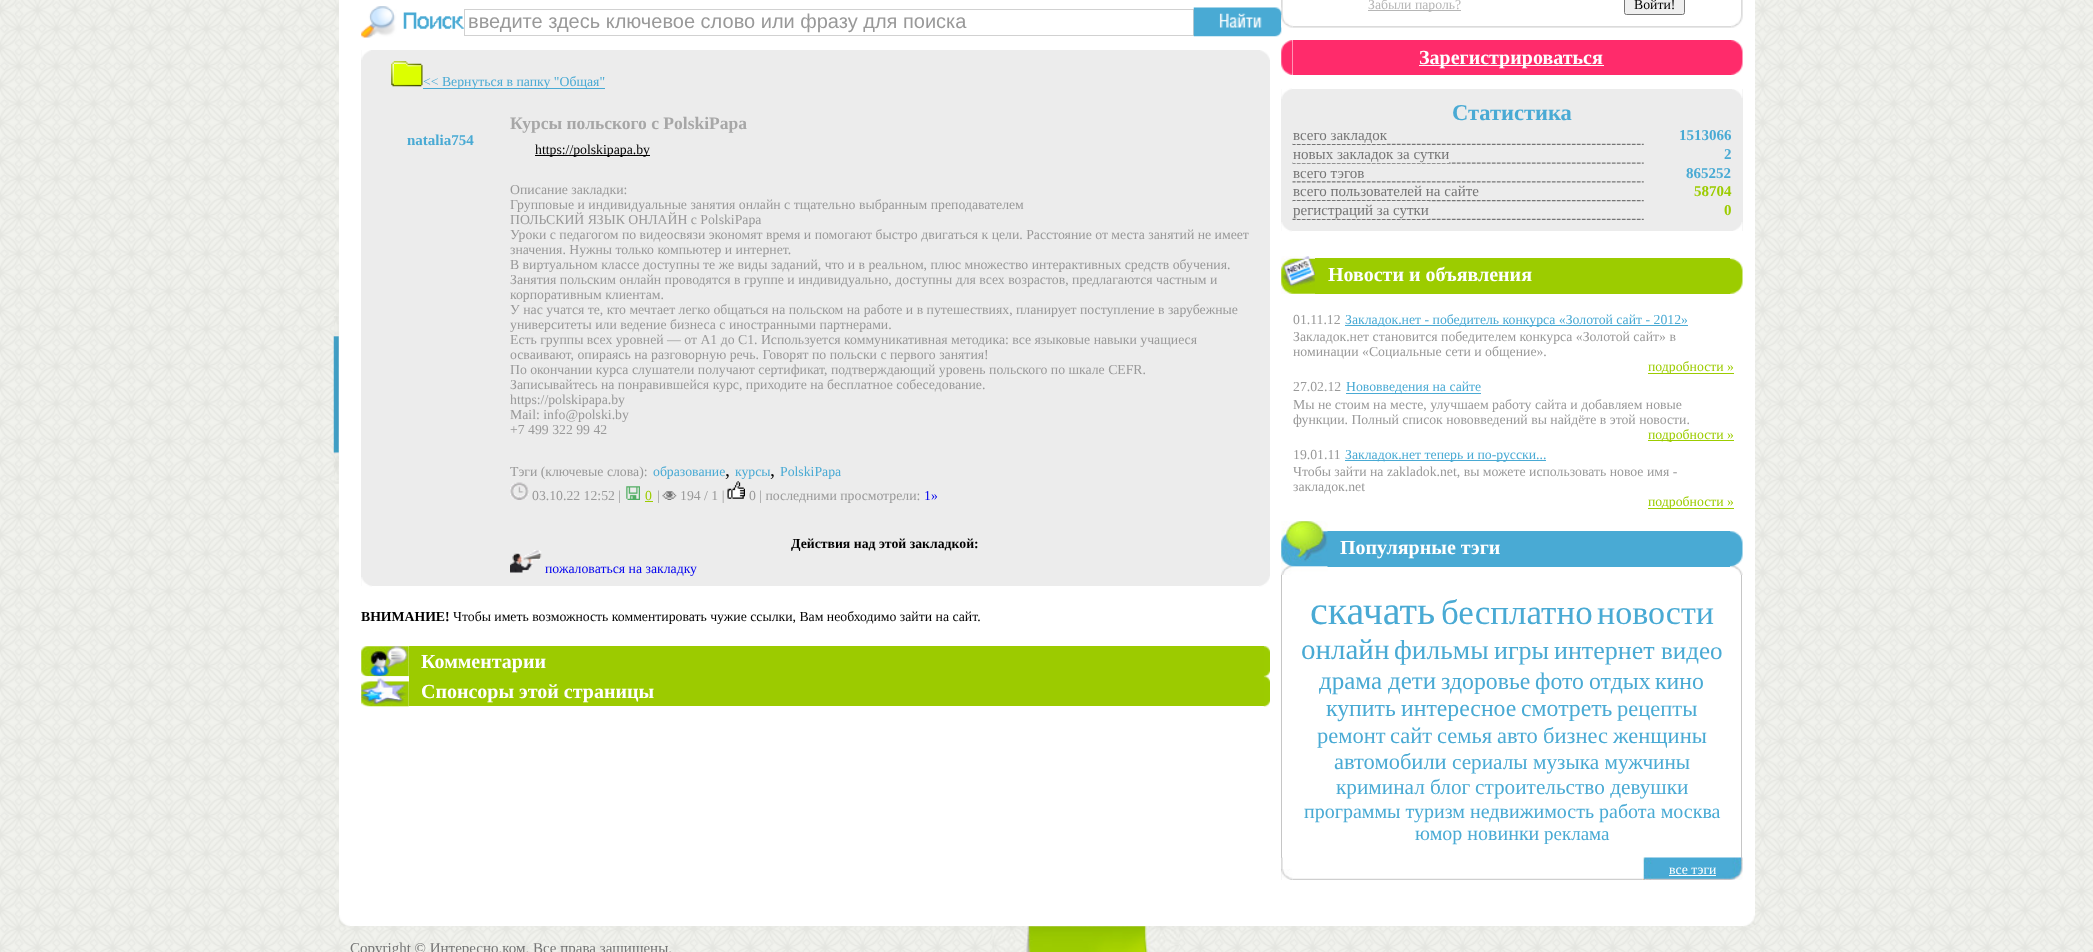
<!DOCTYPE html>
<meta charset="utf-8">
<style>body { margin: 0 } canvas { display: block }</style>
<canvas id="canvas" width="2093" height="952"></canvas>
<img id="img1" src="images/1.png" hidden>
<img id="img2" src="images/2.png" hidden>
<img id="img3" src="images/3.png" hidden>
<img id="img4" src="images/19.png" hidden>
<img id="img5" src="images/4.png" hidden>
<img id="img6" src="images/5.png" hidden>
<img id="img7" src="images/6.png" hidden>
<img id="img8" src="images/7.png" hidden>
<img id="img9" src="images/8.png" hidden>
<img id="img10" src="images/9.png" hidden>
<img id="img11" src="images/10.png" hidden>
<img id="img12" src="images/11.png" hidden>
<img id="img13" src="images/12.png" hidden>
<img id="img14" src="images/13.png" hidden>
<img id="img15" src="images/14.png" hidden>
<img id="img16" src="images/15.png" hidden>
<img id="img17" src="images/16.png" hidden>
<img id="img18" src="images/17.png" hidden>
<img id="img19" src="images/18.png" hidden>
<img id="img20" src="images/21.png" hidden>
<img id="img21" src="images/20.png" hidden>
<img id="img22" src="images/22.png" hidden>
<img id="img23" src="images/23.png" hidden>
<img id="img24" src="images/24.png" hidden>
<img id="img25" src="images/25.png" hidden>
<img id="img26" src="images/26.png" hidden>
<img id="img27" src="images/27.png" hidden>
<img id="img28" src="images/28.png" hidden>
<img id="img29" src="images/29.png" hidden>
<img id="img30" src="images/30.png" hidden>
<img id="img31" src="images/31.png" hidden>
<img id="img32" src="images/32.png" hidden>
<img id="img33" src="images/33.png" hidden>
<img id="img34" src="images/34.png" hidden>
<img id="img35" src="images/35.png" hidden>
<img id="img36" src="images/36.png" hidden>
<img id="img37" src="images/39.png" hidden>
<img id="img38" src="images/37.png" hidden>
<img id="img39" src="images/38.png" hidden>
<img id="img40" src="images/40.png" hidden>
<img id="img41" src="images/41.png" hidden>
<img id="img42" src="images/42.png" hidden>
<script>
window.onload = function () {
    const canvas = document.getElementById('canvas');
    const context = canvas.getContext('2d');
    context.miterLimit = 4;
    context.fontKerning = 'normal';

    context.fillStyle = 'rgb(255, 255, 255)';
    context.fillRect(0, 0, 2093, 952);
    context.drawImage(document.getElementById('img1'), 0, 0, 2093, 952);
    context.drawImage(document.getElementById('img2'), 333, 316, 6, 168);
    context.fillRect(339, 0, 1416, 915);
    context.drawImage(document.getElementById('img3'), 361, 6, 103, 32);
    context.strokeStyle = 'rgb(209, 209, 209)';
    context.strokeRect(464.5, 9.5, 729, 26);
    context.drawImage(document.getElementById('img4'), 1281, 0, 2, 15);
    context.drawImage(document.getElementById('img5'), 1193, 7, 89, 30);
    context.fillStyle = 'rgb(236, 236, 236)';
    context.fillRect(361, 50, 909, 536);
    context.drawImage(document.getElementById('img6'), 361, 50, 10, 10);
    context.drawImage(document.getElementById('img7'), 1260, 50, 10, 10);
    context.drawImage(document.getElementById('img8'), 391, 61, 32, 26);
    context.fillStyle = 'rgb(73, 170, 212)';
    context.fillRect(423, 88, 182, 1);
    context.fillStyle = 'rgb(0, 0, 0)';
    context.fillRect(535, 155, 115, 1);
    context.drawImage(document.getElementById('img9'), 510, 482, 19, 18);
    context.drawImage(document.getElementById('img10'), 626, 486, 14, 14);
    context.drawImage(document.getElementById('img11'), 662, 491, 15, 9);
    context.drawImage(document.getElementById('img12'), 727, 481, 18, 18);
    context.drawImage(document.getElementById('img13'), 510, 550, 32, 23);
    context.fillStyle = 'rgb(156, 204, 0)';
    context.fillRect(645, 501, 8, 1);
    context.drawImage(document.getElementById('img14'), 361, 577, 11, 10);
    context.drawImage(document.getElementById('img15'), 1259, 576, 11, 11);
    context.drawImage(document.getElementById('img16'), 361, 646, 48, 31);
    context.fillStyle = 'rgb(156, 203, 0)';
    context.fillRect(409, 646, 855, 60);
    context.drawImage(document.getElementById('img17'), 1263, 646, 7, 31);
    context.drawImage(document.getElementById('img18'), 361, 676, 48, 31);
    context.drawImage(document.getElementById('img19'), 1263, 676, 7, 31);
    context.fillStyle = 'rgb(182, 182, 182)';
    context.fillRect(1368, 10, 93, 1);
    context.fillStyle = 'rgb(239, 239, 239)';
    context.beginPath();
    context.roundRect(1624.5, -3.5, 60, 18, 2);
    context.fill();
    context.strokeStyle = 'rgb(118, 118, 118)';
    context.stroke();
    context.drawImage(document.getElementById('img4'), 1741, 0, 2, 15);
    context.drawImage(document.getElementById('img20'), 1292, 26, 440, 2);
    context.drawImage(document.getElementById('img21'), 1281, 15, 12, 13);
    context.drawImage(document.getElementById('img22'), 1731, 15, 12, 13);
    context.drawImage(document.getElementById('img23'), 1281, 40, 12, 35);
    context.fillStyle = 'rgb(255, 43, 107)';
    context.fillRect(1293, 40, 437, 35);
    context.fillStyle = 'rgb(255, 255, 255)';
    context.fillRect(1419, 65, 185, 1);
    context.drawImage(document.getElementById('img24'), 1730, 40, 13, 35);
    context.fillStyle = 'rgb(236, 236, 236)';
    context.fillRect(1281, 89, 462, 142);
    context.drawImage(document.getElementById('img25'), 1281, 88, 11, 11);
    context.drawImage(document.getElementById('img26'), 1732, 89, 11, 9);
    context.drawImage(document.getElementById('img27'), 1292, 143, 352, 2);
    context.fillRect(1293, 143, 93, 1);
    context.drawImage(document.getElementById('img28'), 1292, 162, 352, 2);
    context.fillRect(1293, 162, 156, 1);
    context.drawImage(document.getElementById('img29'), 1292, 181, 352, 2);
    context.drawImage(document.getElementById('img30'), 1292, 200, 352, 2);
    context.drawImage(document.getElementById('img27'), 1292, 218, 352, 2);
    context.fillRect(1293, 201, 136, 18);
    context.drawImage(document.getElementById('img14'), 1281, 222, 11, 10);
    context.drawImage(document.getElementById('img31'), 1733, 222, 10, 9);
    context.drawImage(document.getElementById('img32'), 1281, 256, 34, 38);
    context.fillStyle = 'rgb(156, 204, 0)';
    context.fillRect(1315, 258, 415, 36);
    context.drawImage(document.getElementById('img33'), 1730, 258, 13, 36);
    context.fillStyle = 'rgb(73, 170, 212)';
    context.fillRect(1345, 325, 343, 1);
    context.fillStyle = 'rgb(156, 204, 0)';
    context.fillRect(1648, 373, 86, 1);
    context.fillStyle = 'rgb(73, 170, 212)';
    context.fillRect(1346, 393, 135, 1);
    context.fillStyle = 'rgb(156, 204, 0)';
    context.fillRect(1648, 440, 86, 1);
    context.fillStyle = 'rgb(73, 170, 212)';
    context.fillRect(1345, 460, 201, 1);
    context.fillStyle = 'rgb(156, 204, 0)';
    context.fillRect(1648, 508, 86, 1);
    context.fillStyle = 'rgb(73, 170, 212)';
    context.fillRect(1327, 531, 403, 36);
    context.drawImage(document.getElementById('img34'), 1281, 521, 47, 54);
    context.drawImage(document.getElementById('img35'), 1730, 531, 13, 44);
    context.fillStyle = 'rgb(198, 198, 198)';
    context.fillRect(1281, 575, 1, 283);
    context.fillRect(1741, 575, 1, 283);
    context.drawImage(document.getElementById('img36'), 1281, 857, 2, 23);
    context.drawImage(document.getElementById('img37'), 1292, 878, 351, 2);
    context.drawImage(document.getElementById('img38'), 1281, 869, 12, 11);
    context.drawImage(document.getElementById('img39'), 1642, 857, 101, 23);
    context.fillStyle = 'rgb(255, 255, 255)';
    context.fillRect(1669, 875, 47, 1);
    context.drawImage(document.getElementById('img40'), 338, 915, 12, 12);
    context.fillRect(350, 915, 1393, 11);
    context.drawImage(document.getElementById('img41'), 1743, 915, 12, 12);
    context.drawImage(document.getElementById('img42'), 992, 926, 187, 26);
    context.font = '20px Liberation Sans';
    context.fillStyle = 'rgb(153, 153, 153)';
    context.fillText('введите здесь ключевое слово или фразу для поиска', 468, 28);
    context.font = '13.75px Liberation Serif';
    context.fillStyle = 'rgb(73, 170, 212)';
    context.fillText('<< Вернуться в папку "Общая"', 423, 86);
    context.font = 'bold 15px Liberation Serif';
    context.fillText('natalia754', 407, 145);
    context.font = 'bold 17.5px Liberation Serif';
    context.fillStyle = 'rgb(167, 167, 167)';
    context.fillText('Курсы польского с PolskiPapa', 510, 129);
    context.font = '13.75px Liberation Serif';
    context.fillStyle = 'rgb(0, 0, 0)';
    context.fillText('https://polskipapa.by', 535, 154);
    context.fillStyle = 'rgb(153, 153, 153)';
    context.fillText('Описание закладки:', 510, 194);
    context.fillText('Групповые и индивидуальные занятия онлайн с тщательно выбранным преподавателем', 510, 209);
    context.fillText('ПОЛЬСКИЙ ЯЗЫК ОНЛАЙН с PolskiPapa', 510, 224);
    context.fillText('Уроки с педагогом по видеосвязи экономят время и помогают быстро двигаться к цели. Расстояние от места занятий не имеет', 510, 239);
    context.fillText('значения. Нужны только компьютер и интернет.', 510, 254);
    context.fillText('В виртуальном классе доступны те же виды заданий, что и в реальном, плюс множество интерактивных средств обучения.', 510, 269);
    context.fillText('Занятия польским онлайн проводятся в группе и индивидуально, доступны для всех возрастов, предлагаются частным и', 510, 284);
    context.fillText('корпоративным клиентам.', 510, 299);
    context.fillText('У нас учатся те, кто мечтает легко общаться на польском на работе и в путешествиях, планирует поступление в зарубежные', 510, 314);
    context.fillText('университеты или ведение бизнеса с иностранными партнерами.', 510, 329);
    context.fillText('Есть группы всех уровней — от А1 до С1. Используется коммуникативная методика: все языковые навыки учащиеся', 510, 344);
    context.fillText('осваивают, опираясь на разговорную речь. Говорят по польски с первого занятия!', 510, 359);
    context.fillText('По окончании курса слушатели получают сертификат, подтверждающий уровень польского по шкале CEFR.', 510, 374);
    context.fillText('Записывайтесь на понравившейся курс, приходите на бесплатное собеседование.', 510, 389);
    context.fillText('https://polskipapa.by', 510, 404);
    context.fillText('Mail: info@polski.by', 510, 419);
    context.fillText('+7 499 322 99 42', 510, 434);
    context.fillText('Тэги (ключевые слова):', 510, 476);
    context.fillStyle = 'rgb(73, 170, 212)';
    context.fillText('образование', 653, 476);
    context.font = '20px Liberation Serif';
    context.fillStyle = 'rgb(0, 0, 0)';
    context.fillText(',', 725, 476);
    context.font = '13.75px Liberation Serif';
    context.fillStyle = 'rgb(73, 170, 212)';
    context.fillText('курсы', 735, 476);
    context.font = '20px Liberation Serif';
    context.fillStyle = 'rgb(0, 0, 0)';
    context.fillText(',', 770, 476);
    context.font = '13.75px Liberation Serif';
    context.fillStyle = 'rgb(73, 170, 212)';
    context.fillText('PolskiPapa', 780, 476);
    context.fillStyle = 'rgb(153, 153, 153)';
    context.fillText('03.10.22 12:52 |', 532, 500);
    context.fillText('|', 657, 500);
    context.fillText('194 / 1 |', 680, 500);
    context.fillText('0 | последними просмотрели:', 749, 500);
    context.fillStyle = 'rgb(0, 0, 238)';
    context.fillText('1»', 924, 500);
    context.font = 'bold 13.75px Liberation Serif';
    context.fillStyle = 'rgb(0, 0, 0)';
    context.fillText('Действия над этой закладкой:', 791, 548);
    context.font = '13.75px Liberation Serif';
    context.fillStyle = 'rgb(0, 0, 238)';
    context.fillText('пожаловаться на закладку', 545, 573);
    context.fillStyle = 'rgb(156, 204, 0)';
    context.fillText('0', 645, 500);
    context.font = 'bold 13.75px Liberation Serif';
    context.fillStyle = 'rgb(0, 0, 0)';
    context.fillText('ВНИМАНИЕ!', 361, 621);
    context.font = '13.75px Liberation Serif';
    context.fillText('Чтобы иметь возможность комментировать чужие ссылки, Вам необходимо зайти на сайт.', 453, 621);
    context.font = 'bold 20px Liberation Serif';
    context.fillStyle = 'rgb(255, 255, 255)';
    context.fillText('Комментарии', 421, 668);
    context.fillText('Спонсоры этой страницы', 421, 698);
    context.font = '13.75px Liberation Serif';
    context.fillStyle = 'rgb(182, 182, 182)';
    context.fillText('Забыли пароль?', 1368, 9);
    context.fillStyle = 'rgb(0, 0, 0)';
    context.fillText('Войти!', 1634, 9);
    context.font = 'bold 20px Liberation Serif';
    context.fillStyle = 'rgb(255, 255, 255)';
    context.fillText('Зарегистрироваться', 1419, 64);
    context.font = 'bold 22.5px Liberation Serif';
    context.fillStyle = 'rgb(73, 170, 212)';
    context.fillText('Статистика', 1452, 120);
    context.font = '15px Liberation Serif';
    context.fillStyle = 'rgb(117, 117, 117)';
    context.fillText('всего закладок', 1293, 140);
    context.font = 'bold 15px Liberation Serif';
    context.fillStyle = 'rgb(73, 170, 212)';
    context.fillText('1513066', 1679, 140);
    context.font = '15px Liberation Serif';
    context.fillStyle = 'rgb(117, 117, 117)';
    context.fillText('новых закладок за сутки', 1293, 159);
    context.font = 'bold 15px Liberation Serif';
    context.fillStyle = 'rgb(73, 170, 212)';
    context.fillText('2', 1724, 159);
    context.font = '15px Liberation Serif';
    context.fillStyle = 'rgb(117, 117, 117)';
    context.fillText('всего тэгов', 1293, 178);
    context.font = 'bold 15px Liberation Serif';
    context.fillStyle = 'rgb(73, 170, 212)';
    context.fillText('865252', 1686, 178);
    context.font = '15px Liberation Serif';
    context.fillStyle = 'rgb(117, 117, 117)';
    context.fillText('всего пользователей на сайте', 1293, 196);
    context.font = 'bold 15px Liberation Serif';
    context.fillStyle = 'rgb(156, 204, 0)';
    context.fillText('58704', 1694, 196);
    context.font = '15px Liberation Serif';
    context.fillStyle = 'rgb(117, 117, 117)';
    context.fillText('регистраций за сутки', 1293, 215);
    context.font = 'bold 15px Liberation Serif';
    context.fillStyle = 'rgb(156, 204, 0)';
    context.fillText('0', 1724, 215);
    context.font = 'bold 20px Liberation Serif';
    context.fillStyle = 'rgb(255, 255, 255)';
    context.fillText('Новости и объявления', 1328, 281);
    context.font = '13.75px Liberation Serif';
    context.fillStyle = 'rgb(153, 153, 153)';
    context.fillText('01.11.12', 1293, 324);
    context.fillStyle = 'rgb(73, 170, 212)';
    context.fillText('Закладок.нет - победитель конкурса «Золотой сайт - 2012»', 1345, 324);
    context.fillStyle = 'rgb(153, 153, 153)';
    context.fillText('Закладок.нет становится победителем конкурса «Золотой сайт» в', 1293, 341);
    context.fillText('номинации «Социальные сети и общение».', 1293, 356);
    context.fillStyle = 'rgb(156, 204, 0)';
    context.fillText('подробности »', 1648, 371);
    context.fillStyle = 'rgb(153, 153, 153)';
    context.fillText('27.02.12', 1293, 391);
    context.fillStyle = 'rgb(73, 170, 212)';
    context.fillText('Нововведения на сайте', 1346, 391);
    context.fillStyle = 'rgb(153, 153, 153)';
    context.fillText('Мы не стоим на месте, улучшаем работу сайта и добавляем новые', 1293, 409);
    context.fillText('функции. Полный список нововведений вы найдёте в этой новости.', 1293, 424);
    context.fillStyle = 'rgb(156, 204, 0)';
    context.fillText('подробности »', 1648, 439);
    context.fillStyle = 'rgb(153, 153, 153)';
    context.fillText('19.01.11', 1293, 459);
    context.fillStyle = 'rgb(73, 170, 212)';
    context.fillText('Закладок.нет теперь и по-русски...', 1345, 459);
    context.fillStyle = 'rgb(153, 153, 153)';
    context.fillText('Чтобы зайти на zakladok.net, вы можете использовать новое имя -', 1293, 476);
    context.fillText('закладок.net', 1293, 491);
    context.fillStyle = 'rgb(156, 204, 0)';
    context.fillText('подробности »', 1648, 506);
    context.font = 'bold 20px Liberation Serif';
    context.fillStyle = 'rgb(255, 255, 255)';
    context.fillText('Популярные тэги', 1340, 554);
    context.font = '40px Liberation Serif';
    context.fillStyle = 'rgb(73, 170, 212)';
    context.fillText('скачать', 1310, 624);
    context.font = '35px Liberation Serif';
    context.fillText('бесплатно', 1441, 624);
    context.font = '34px Liberation Serif';
    context.fillText('новости', 1597, 624);
    context.font = '29px Liberation Serif';
    context.fillText('онлайн', 1301, 659);
    context.font = '27.5px Liberation Serif';
    context.fillText('фильмы', 1394, 659);
    context.font = '26px Liberation Serif';
    context.fillText('игры', 1494, 659);
    context.fillText('интернет', 1554, 659);
    context.font = '25px Liberation Serif';
    context.fillText('видео', 1661, 659);
    context.fillText('драма', 1319, 689);
    context.fillText('дети', 1388, 689);
    context.font = '23.75px Liberation Serif';
    context.fillText('здоровье', 1441, 689);
    context.fillText('фото', 1535, 689);
    context.fillText('отдых', 1589, 689);
    context.fillText('кино', 1655, 689);
    context.fillText('купить', 1326, 716);
    context.fillText('интересное', 1401, 716);
    context.fillText('смотреть', 1521, 716);
    context.font = '22.5px Liberation Serif';
    context.fillText('рецепты', 1617, 716);
    context.fillText('ремонт', 1317, 743);
    context.fillText('сайт', 1390, 743);
    context.fillText('семья', 1437, 743);
    context.fillText('авто', 1497, 743);
    context.fillText('бизнес', 1543, 743);
    context.fillText('женщины', 1613, 743);
    context.fillText('автомобили', 1334, 769);
    context.font = '21.25px Liberation Serif';
    context.fillText('сериалы', 1452, 769);
    context.fillText('музыка мужчины', 1533, 769);
    context.fillText('криминал блог', 1336, 794);
    context.fillText('строительство девушки', 1475, 794);
    context.font = '20px Liberation Serif';
    context.fillText('программы туризм недвижимость работа москва', 1304, 818);
    context.fillText('юмор новинки', 1415, 840);
    context.font = '19px Liberation Serif';
    context.fillText('реклама', 1544, 840);
    context.font = '13.75px Liberation Serif';
    context.fillStyle = 'rgb(255, 255, 255)';
    context.fillText('все тэги', 1669, 874);
    context.font = '15px Liberation Serif';
    context.fillStyle = 'rgb(117, 117, 117)';
    context.fillText('Copyright © Интересно.ком. Все права защищены.', 350, 953);
};
</script>
